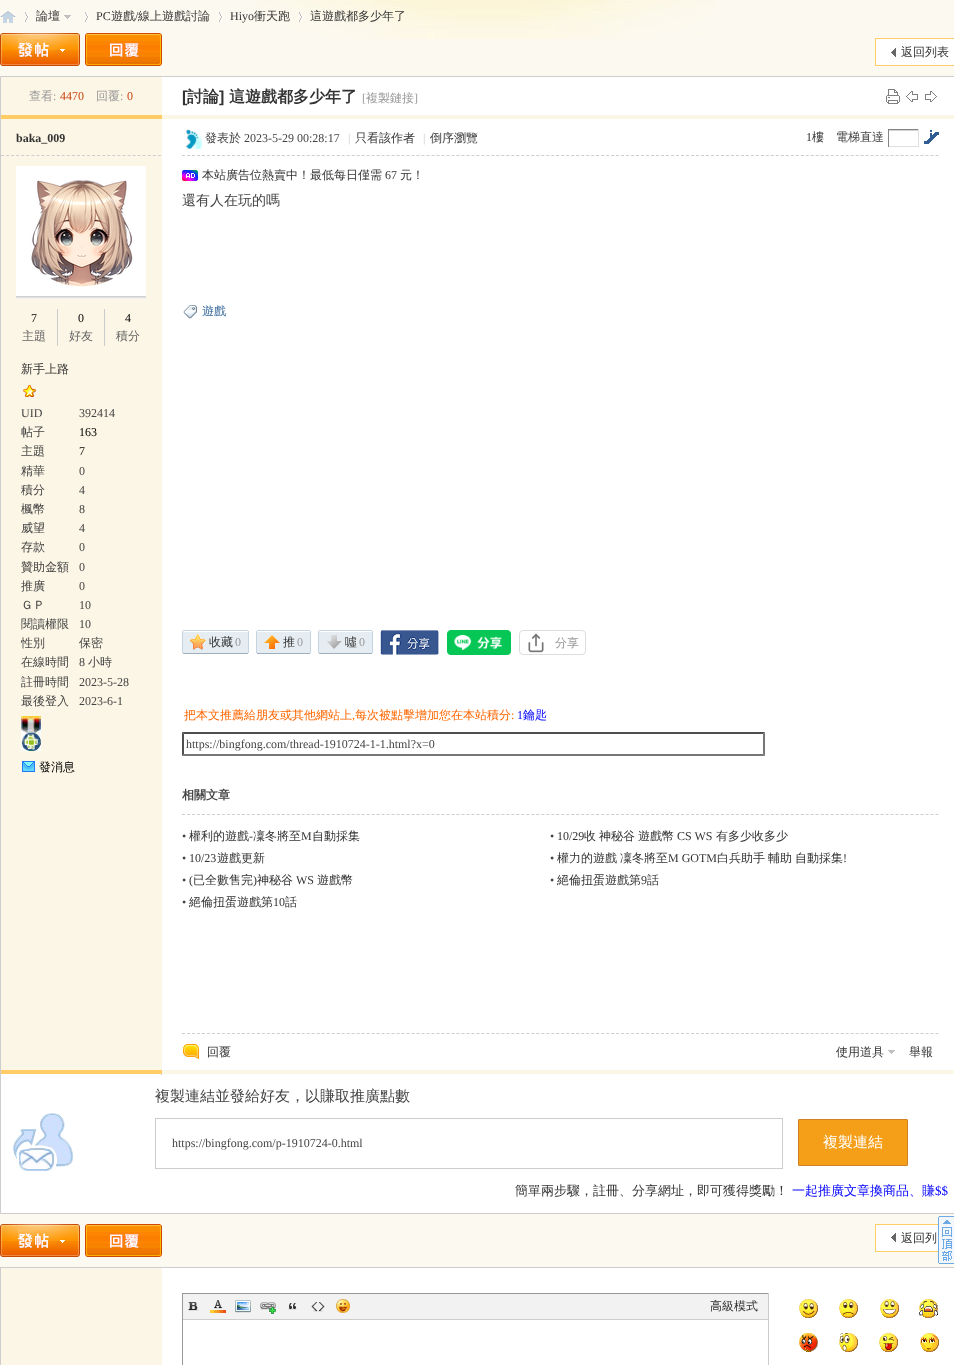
<!DOCTYPE html>
<meta charset="utf-8">
<style>body { margin: 0 } canvas { display: block }</style>
<canvas id="canvas" width="954" height="1365"></canvas>
<img id="img1" src="images/1.png" hidden>
<img id="img2" src="images/2.png" hidden>
<img id="img3" src="images/3.png" hidden>
<img id="img4" src="images/4.png" hidden>
<img id="img5" src="images/5.png" hidden>
<img id="img6" src="images/6.png" hidden>
<img id="img7" src="images/7.png" hidden>
<img id="img8" src="images/8.png" hidden>
<img id="img9" src="images/9.png" hidden>
<img id="img10" src="images/10.png" hidden>
<img id="img11" src="images/11.png" hidden>
<img id="img12" src="images/12.png" hidden>
<img id="img13" src="images/13.png" hidden>
<img id="img14" src="images/14.png" hidden>
<img id="img15" src="images/15.png" hidden>
<img id="img16" src="images/16.png" hidden>
<img id="img17" src="images/17.png" hidden>
<img id="img18" src="images/18.png" hidden>
<img id="img19" src="images/19.png" hidden>
<img id="img20" src="images/20.png" hidden>
<img id="img21" src="images/21.png" hidden>
<img id="img22" src="images/22.png" hidden>
<img id="img23" src="images/23.png" hidden>
<img id="img24" src="images/24.png" hidden>
<img id="img25" src="images/25.png" hidden>
<img id="img26" src="images/26.png" hidden>
<img id="img27" src="images/27.png" hidden>
<img id="img28" src="images/28.png" hidden>
<img id="img29" src="images/29.png" hidden>
<img id="img30" src="images/30.png" hidden>
<img id="img31" src="images/31.png" hidden>
<img id="img32" src="images/32.png" hidden>
<img id="img33" src="images/33.png" hidden>
<img id="img34" src="images/34.png" hidden>
<img id="img35" src="images/35.png" hidden>
<img id="img36" src="images/36.png" hidden>
<img id="img37" src="images/37.png" hidden>
<img id="img38" src="images/38.png" hidden>
<img id="img39" src="images/39.png" hidden>
<img id="img40" src="images/40.png" hidden>
<img id="img41" src="images/41.png" hidden>
<img id="img42" src="images/42.png" hidden>
<img id="img43" src="images/43.png" hidden>
<img id="img44" src="images/44.png" hidden>
<img id="img45" src="images/45.png" hidden>
<img id="img46" src="images/46.png" hidden>
<img id="img47" src="images/47.png" hidden>
<script>
window.onload = function () {
    const canvas = document.getElementById('canvas');
    const context = canvas.getContext('2d');
    context.miterLimit = 4;
    context.fontKerning = 'normal';

    context.fillStyle = 'rgb(252, 250, 240)';
    context.fillRect(0, 0, 954, 1365);
    context.drawImage(document.getElementById('img1'), 255, 0, 461, 39);
    context.drawImage(document.getElementById('img2'), 0, 11, 16, 12);
    context.drawImage(document.getElementById('img3'), 25, 12, 4, 10);
    context.drawImage(document.getElementById('img4'), 64, 15, 7, 4);
    context.drawImage(document.getElementById('img3'), 85, 12, 4, 10);
    context.drawImage(document.getElementById('img3'), 219, 12, 4, 10);
    context.drawImage(document.getElementById('img5'), 299, 12, 4, 10);
    context.drawImage(document.getElementById('img6'), 0, 33, 80, 33);
    context.drawImage(document.getElementById('img7'), 85, 33, 77, 33);
    context.fillStyle = 'rgb(255, 255, 255)';
    context.fillRect(876, 39, 78, 26);
    context.drawImage(document.getElementById('img8'), 891, 48, 5, 9);
    context.strokeStyle = 'rgb(255, 204, 102)';
    context.strokeRect(875.5, 38.5, 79, 27);
    context.beginPath();
    context.rect(0.5, 76.5, 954, 1137);
    context.fill();
    context.strokeStyle = 'rgb(205, 205, 205)';
    context.stroke();
    context.fillStyle = 'rgb(252, 246, 230)';
    context.fillRect(1, 77, 161, 38);
    context.drawImage(document.getElementById('img9'), 886, 89, 14, 15);
    context.drawImage(document.getElementById('img10'), 906, 91, 12, 11);
    context.drawImage(document.getElementById('img11'), 925, 91, 12, 11);
    context.fillStyle = 'rgb(255, 204, 102)';
    context.fillRect(1, 115, 161, 4);
    context.fillStyle = 'rgb(252, 246, 230)';
    context.fillRect(162, 115, 792, 4);
    context.fillRect(1, 119, 161, 951);
    context.beginPath();
    context.moveTo(1, 155.5);
    context.lineTo(161, 155.5);
    context.setLineDash([3, 2.06]);
    context.stroke();
    context.fillStyle = 'rgb(255, 255, 255)';
    context.fillRect(16, 166, 130, 130);
    context.drawImage(document.getElementById('img12'), 16, 180, 130, 119);
    context.fillStyle = 'rgb(204, 204, 204)';
    context.fillRect(57, 309, 1, 37);
    context.fillRect(104, 309, 1, 37);
    context.drawImage(document.getElementById('img13'), 23, 385, 13, 12);
    context.drawImage(document.getElementById('img14'), 21, 716, 20, 35);
    context.drawImage(document.getElementById('img15'), 22, 761, 13, 11);
    context.beginPath();
    context.moveTo(182, 155.5);
    context.lineTo(939, 155.5);
    context.setLineDash([3, 1.99]);
    context.stroke();
    context.drawImage(document.getElementById('img16'), 186, 129, 16, 20);
    context.fillStyle = 'rgb(212, 212, 212)';
    context.fillRect(888, 130, 31, 1);
    context.fillStyle = 'rgb(132, 132, 132)';
    context.fillRect(888, 129, 31, 1);
    context.fillStyle = 'rgb(224, 224, 224)';
    context.fillRect(918, 129, 1, 18);
    context.fillRect(888, 146, 31, 1);
    context.fillStyle = 'rgb(132, 132, 132)';
    context.fillRect(888, 129, 1, 18);
    context.drawImage(document.getElementById('img17'), 924, 130, 15, 14);
    context.drawImage(document.getElementById('img18'), 182, 170, 16, 11);
    context.drawImage(document.getElementById('img19'), 183, 305, 14, 14);
    context.drawImage(document.getElementById('img20'), 182, 630, 26, 24);
    context.drawImage(document.getElementById('img21'), 208, 630, 41, 24);
    context.drawImage(document.getElementById('img22'), 190, 634, 16, 16);
    context.drawImage(document.getElementById('img20'), 256, 630, 26, 24);
    context.drawImage(document.getElementById('img23'), 282, 630, 29, 24);
    context.drawImage(document.getElementById('img24'), 264, 635, 16, 14);
    context.drawImage(document.getElementById('img20'), 318, 630, 26, 24);
    context.drawImage(document.getElementById('img23'), 344, 630, 29, 24);
    context.drawImage(document.getElementById('img25'), 326, 635, 16, 14);
    context.drawImage(document.getElementById('img26'), 380, 630, 59, 25);
    context.drawImage(document.getElementById('img27'), 447, 630, 64, 25);
    context.beginPath();
    context.roundRect(519.5, 630.5, 66, 24, 3.5);
    context.strokeStyle = 'rgb(221, 221, 221)';
    context.setLineDash([]);
    context.stroke();
    context.drawImage(document.getElementById('img28'), 528, 633, 16, 20);
    context.fillStyle = 'rgb(79, 79, 79)';
    context.beginPath();
    context.moveTo(182, 732);
    context.lineTo(765, 732);
    context.lineTo(763, 734);
    context.lineTo(184, 734);
    context.closePath();
    context.fill();
    context.fillStyle = 'rgb(118, 118, 118)';
    context.beginPath();
    context.moveTo(765, 732);
    context.lineTo(765, 756);
    context.lineTo(763, 754);
    context.lineTo(763, 734);
    context.closePath();
    context.fill();
    context.beginPath();
    context.moveTo(765, 756);
    context.lineTo(182, 756);
    context.lineTo(184, 754);
    context.lineTo(763, 754);
    context.closePath();
    context.fill();
    context.fillStyle = 'rgb(79, 79, 79)';
    context.beginPath();
    context.moveTo(182, 756);
    context.lineTo(182, 732);
    context.lineTo(184, 734);
    context.lineTo(184, 754);
    context.closePath();
    context.fill();
    context.beginPath();
    context.moveTo(182, 814.5);
    context.lineTo(939, 814.5);
    context.strokeStyle = 'rgb(205, 205, 205)';
    context.setLineDash([3, 1.99]);
    context.stroke();
    context.beginPath();
    context.moveTo(182, 1033.5);
    context.lineTo(939, 1033.5);
    context.stroke();
    context.drawImage(document.getElementById('img29'), 183, 1044, 16, 15);
    context.drawImage(document.getElementById('img30'), 888, 1050, 7, 4);
    context.fillStyle = 'rgb(194, 213, 227)';
    context.fillRect(161, 1070, 1, 5);
    context.fillStyle = 'rgb(255, 204, 102)';
    context.fillRect(1, 1070, 161, 4);
    context.fillStyle = 'rgb(252, 246, 230)';
    context.fillRect(162, 1070, 792, 4);
    context.drawImage(document.getElementById('img31'), 13, 1113, 60, 59);
    context.setLineDash([]);
    context.strokeRect(155.5, 1118.5, 627, 50);
    context.fillStyle = 'rgb(245, 159, 24)';
    context.beginPath();
    context.roundRect(798.5, 1119.5, 109, 46, 0.5);
    context.fill();
    context.strokeStyle = 'rgb(206, 130, 36)';
    context.stroke();
    context.drawImage(document.getElementById('img6'), 0, 1224, 80, 33);
    context.drawImage(document.getElementById('img7'), 85, 1224, 77, 33);
    context.fillStyle = 'rgb(255, 255, 255)';
    context.fillRect(876, 1225, 62, 26);
    context.drawImage(document.getElementById('img8'), 891, 1233, 5, 9);
    context.strokeStyle = 'rgb(255, 204, 102)';
    context.strokeRect(875.5, 1224.5, 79, 27);
    context.fillRect(162, 1268, 792, 97);
    context.strokeStyle = 'rgb(205, 205, 205)';
    context.strokeRect(0.5, 1267.5, 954, 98);
    context.fillStyle = 'rgb(194, 213, 227)';
    context.fillRect(161, 1267, 1, 1);
    context.fillStyle = 'rgb(252, 246, 230)';
    context.fillRect(1, 1268, 161, 97);
    context.fillStyle = 'rgb(153, 153, 153)';
    context.fillRect(182, 1293, 587, 1);
    context.fillStyle = 'rgb(204, 204, 204)';
    context.fillRect(768, 1293, 1, 72);
    context.fillStyle = 'rgb(153, 153, 153)';
    context.fillRect(182, 1293, 1, 72);
    context.fillStyle = 'rgb(242, 242, 242)';
    context.fillRect(183, 1294, 585, 25);
    context.fillStyle = 'rgb(205, 205, 205)';
    context.fillRect(183, 1319, 585, 1);
    context.drawImage(document.getElementById('img32'), 188, 1302, 11, 9);
    context.drawImage(document.getElementById('img33'), 210, 1300, 16, 13);
    context.drawImage(document.getElementById('img34'), 235, 1300, 16, 13);
    context.drawImage(document.getElementById('img35'), 260, 1302, 17, 13);
    context.drawImage(document.getElementById('img36'), 288, 1303, 9, 7);
    context.drawImage(document.getElementById('img37'), 311, 1302, 14, 10);
    context.drawImage(document.getElementById('img38'), 335, 1299, 15, 14);
    context.drawImage(document.getElementById('img39'), 799, 1299, 19, 19);
    context.drawImage(document.getElementById('img40'), 839, 1299, 19, 19);
    context.drawImage(document.getElementById('img41'), 880, 1299, 19, 19);
    context.drawImage(document.getElementById('img42'), 919, 1299, 19, 19);
    context.drawImage(document.getElementById('img43'), 799, 1333, 19, 19);
    context.drawImage(document.getElementById('img44'), 839, 1333, 19, 19);
    context.drawImage(document.getElementById('img45'), 879, 1333, 19, 19);
    context.drawImage(document.getElementById('img46'), 920, 1333, 19, 19);
    context.drawImage(document.getElementById('img47'), 938, 1216, 16, 48);
    context.font = '500 12px WenQuanYi Zen Hei';
    context.fillStyle = 'rgb(51, 51, 51)';
    context.fillText('論壇', 36, 20);
    context.font = '12px Liberation Serif';
    context.fillText('PC', 96, 20);
    context.font = '500 12px WenQuanYi Zen Hei';
    context.fillText('遊戲', 111, 20);
    context.font = '12px Liberation Serif';
    context.fillText('/', 135, 20);
    context.font = '500 12px WenQuanYi Zen Hei';
    context.fillText('線上遊戲討論', 138, 20);
    context.font = '12px Liberation Serif';
    context.fillText('Hiyo', 230, 20);
    context.font = '500 12px WenQuanYi Zen Hei';
    context.fillText('衝天跑', 254, 20);
    context.fillText('這遊戲都多少年了', 310, 20);
    context.fillText('返回列表', 901, 56);
    context.fillStyle = 'rgb(153, 153, 153)';
    context.fillText('查看', 29, 100);
    context.font = '12px Liberation Serif';
    context.fillText(':', 53, 100);
    context.fillStyle = 'rgb(202, 67, 18)';
    context.fillText('4470', 60, 100);
    context.font = '500 12px WenQuanYi Zen Hei';
    context.fillStyle = 'rgb(153, 153, 153)';
    context.fillText('回覆', 96, 100);
    context.font = '12px Liberation Serif';
    context.fillText(':', 120, 100);
    context.fillStyle = 'rgb(202, 67, 18)';
    context.fillText('0', 127, 100);
    context.font = 'bold 16px Liberation Sans';
    context.fillStyle = 'rgb(51, 51, 51)';
    context.fillText('[', 182, 102);
    context.font = 'bold 16px WenQuanYi Zen Hei';
    context.fillText('討論', 187, 102);
    context.font = 'bold 16px Liberation Sans';
    context.fillText(']', 219, 102);
    context.font = 'bold 16px WenQuanYi Zen Hei';
    context.fillText('這遊戲都多少年了', 229, 102);
    context.font = '12px Liberation Serif';
    context.fillStyle = 'rgb(153, 153, 153)';
    context.fillText('[', 362, 102);
    context.font = '500 12px WenQuanYi Zen Hei';
    context.fillText('複製鏈接', 366, 102);
    context.font = '12px Liberation Serif';
    context.fillText(']', 414, 102);
    context.font = 'bold 12px Liberation Serif';
    context.fillStyle = 'rgb(51, 51, 51)';
    context.fillText('baka_009', 16, 142);
    context.font = '12px Liberation Serif';
    context.fillStyle = 'rgb(0, 0, 0)';
    context.fillText('7', 31, 322);
    context.font = '500 12px WenQuanYi Zen Hei';
    context.fillStyle = 'rgb(102, 102, 102)';
    context.fillText('主題', 22, 340);
    context.font = '12px Liberation Serif';
    context.fillStyle = 'rgb(0, 0, 0)';
    context.fillText('0', 78, 322);
    context.font = '500 12px WenQuanYi Zen Hei';
    context.fillStyle = 'rgb(102, 102, 102)';
    context.fillText('好友', 69, 340);
    context.font = '12px Liberation Serif';
    context.fillStyle = 'rgb(0, 0, 0)';
    context.fillText('4', 125, 322);
    context.font = '500 12px WenQuanYi Zen Hei';
    context.fillStyle = 'rgb(102, 102, 102)';
    context.fillText('積分', 116, 340);
    context.fillStyle = 'rgb(51, 51, 51)';
    context.fillText('新手上路', 21, 373);
    context.font = '12px Liberation Serif';
    context.fillStyle = 'rgb(68, 68, 68)';
    context.fillText('UID', 21, 417);
    context.fillText('392414', 79, 417);
    context.font = '500 12px WenQuanYi Zen Hei';
    context.fillText('帖子', 21, 436);
    context.font = '12px Liberation Serif';
    context.fillStyle = 'rgb(0, 0, 0)';
    context.fillText('163', 79, 436);
    context.font = '500 12px WenQuanYi Zen Hei';
    context.fillStyle = 'rgb(68, 68, 68)';
    context.fillText('主題', 21, 455);
    context.font = '12px Liberation Serif';
    context.fillStyle = 'rgb(0, 0, 0)';
    context.fillText('7', 79, 455);
    context.font = '500 12px WenQuanYi Zen Hei';
    context.fillStyle = 'rgb(68, 68, 68)';
    context.fillText('精華', 21, 475);
    context.font = '12px Liberation Serif';
    context.fillText('0', 79, 475);
    context.font = '500 12px WenQuanYi Zen Hei';
    context.fillText('積分', 21, 494);
    context.font = '12px Liberation Serif';
    context.fillText('4', 79, 494);
    context.font = '500 12px WenQuanYi Zen Hei';
    context.fillText('楓幣', 21, 513);
    context.font = '12px Liberation Serif';
    context.fillText('8', 79, 513);
    context.font = '500 12px WenQuanYi Zen Hei';
    context.fillText('威望', 21, 532);
    context.font = '12px Liberation Serif';
    context.fillText('4', 79, 532);
    context.font = '500 12px WenQuanYi Zen Hei';
    context.fillText('存款', 21, 551);
    context.font = '12px Liberation Serif';
    context.fillText('0', 79, 551);
    context.font = '500 12px WenQuanYi Zen Hei';
    context.fillText('贊助金額', 21, 571);
    context.font = '12px Liberation Serif';
    context.fillText('0', 79, 571);
    context.font = '500 12px WenQuanYi Zen Hei';
    context.fillText('推廣', 21, 590);
    context.font = '12px Liberation Serif';
    context.fillText('0', 79, 590);
    context.font = '500 12px WenQuanYi Zen Hei';
    context.fillText('ＧＰ', 21, 609);
    context.font = '12px Liberation Serif';
    context.fillText('10', 79, 609);
    context.font = '500 12px WenQuanYi Zen Hei';
    context.fillText('閱讀權限', 21, 628);
    context.font = '12px Liberation Serif';
    context.fillText('10', 79, 628);
    context.font = '500 12px WenQuanYi Zen Hei';
    context.fillText('性別', 21, 647);
    context.fillText('保密', 79, 647);
    context.fillText('在線時間', 21, 666);
    context.font = '12px Liberation Serif';
    context.fillText('8', 79, 666);
    context.font = '500 12px WenQuanYi Zen Hei';
    context.fillText('小時', 88, 666);
    context.fillText('註冊時間', 21, 686);
    context.font = '12px Liberation Serif';
    context.fillText('2023-5-28', 79, 686);
    context.font = '500 12px WenQuanYi Zen Hei';
    context.fillText('最後登入', 21, 705);
    context.font = '12px Liberation Serif';
    context.fillText('2023-6-1', 79, 705);
    context.font = '500 12px WenQuanYi Zen Hei';
    context.fillStyle = 'rgb(0, 0, 0)';
    context.fillText('發消息', 39, 771);
    context.fillStyle = 'rgb(68, 68, 68)';
    context.fillText('發表於', 205, 142);
    context.font = '12px Liberation Serif';
    context.fillText('2023-5-29 00:28:17', 244, 142);
    context.fillStyle = 'rgb(204, 204, 204)';
    context.fillText('|', 348, 142);
    context.font = '500 12px WenQuanYi Zen Hei';
    context.fillStyle = 'rgb(51, 51, 51)';
    context.fillText('只看該作者', 355, 142);
    context.font = '12px Liberation Serif';
    context.fillStyle = 'rgb(204, 204, 204)';
    context.fillText('|', 423, 142);
    context.font = '500 12px WenQuanYi Zen Hei';
    context.fillStyle = 'rgb(51, 51, 51)';
    context.fillText('倒序瀏覽', 430, 142);
    context.font = '12px Liberation Serif';
    context.fillText('1', 806, 141);
    context.font = '500 12px WenQuanYi Zen Hei';
    context.fillText('樓', 812, 141);
    context.fillStyle = 'rgb(68, 68, 68)';
    context.fillText('電梯直達', 836, 141);
    context.fillStyle = 'rgb(51, 51, 51)';
    context.fillText('本站廣告位熱賣中！最低每日僅需', 202, 179);
    context.font = '12px Liberation Serif';
    context.fillText('67', 385, 179);
    context.font = '500 12px WenQuanYi Zen Hei';
    context.fillText('元！', 400, 179);
    context.font = '500 14px WenQuanYi Zen Hei';
    context.fillStyle = 'rgb(68, 68, 68)';
    context.fillText('還有人在玩的嗎', 182, 205);
    context.font = '500 12px WenQuanYi Zen Hei';
    context.fillStyle = 'rgb(51, 102, 153)';
    context.fillText('遊戲', 202, 315);
    context.fillStyle = 'rgb(51, 51, 51)';
    context.fillText('收藏', 209, 646);
    context.font = '12px Liberation Serif';
    context.fillStyle = 'rgb(153, 153, 153)';
    context.fillText('0', 235, 646);
    context.font = '500 12px WenQuanYi Zen Hei';
    context.fillStyle = 'rgb(51, 51, 51)';
    context.fillText('推', 283, 646);
    context.font = '12px Liberation Serif';
    context.fillStyle = 'rgb(153, 153, 153)';
    context.fillText('0', 297, 646);
    context.font = '500 12px WenQuanYi Zen Hei';
    context.fillStyle = 'rgb(51, 51, 51)';
    context.fillText('噓', 345, 646);
    context.font = '12px Liberation Serif';
    context.fillStyle = 'rgb(153, 153, 153)';
    context.fillText('0', 359, 646);
    context.font = '500 12px WenQuanYi Zen Hei';
    context.fillText('分享', 555, 647);
    context.fillStyle = 'rgb(255, 102, 0)';
    context.fillText('把本文推薦給朋友或其他網站上', 184, 719);
    context.font = '12px Liberation Serif';
    context.fillText(',', 352, 719);
    context.font = '500 12px WenQuanYi Zen Hei';
    context.fillText('每次被點擊增加您在本站積分', 355, 719);
    context.font = '12px Liberation Serif';
    context.fillText(':', 511, 719);
    context.fillStyle = 'rgb(0, 0, 255)';
    context.fillText('1', 517, 719);
    context.font = '500 12px WenQuanYi Zen Hei';
    context.fillText('鑰匙', 523, 719);
    context.font = '12px Liberation Serif';
    context.fillStyle = 'rgb(68, 68, 68)';
    context.fillText('https://bingfong.com/thread-1910724-1-1.html?x=0', 186, 748);
    context.font = 'bold 12px WenQuanYi Zen Hei';
    context.fillText('相關文章', 182, 799);
    context.font = '12px Liberation Serif';
    context.fillText('•', 182, 840);
    context.font = '500 12px WenQuanYi Zen Hei';
    context.fillStyle = 'rgb(51, 51, 51)';
    context.fillText('權利的遊戲', 189, 840);
    context.font = '12px Liberation Serif';
    context.fillText('-', 249, 840);
    context.font = '500 12px WenQuanYi Zen Hei';
    context.fillText('凜冬將至', 253, 840);
    context.font = '12px Liberation Serif';
    context.fillText('M', 301, 840);
    context.font = '500 12px WenQuanYi Zen Hei';
    context.fillText('自動採集', 312, 840);
    context.font = '12px Liberation Serif';
    context.fillStyle = 'rgb(68, 68, 68)';
    context.fillText('•', 550, 840);
    context.fillStyle = 'rgb(51, 51, 51)';
    context.fillText('10/29', 557, 840);
    context.font = '500 12px WenQuanYi Zen Hei';
    context.fillText('收', 584, 840);
    context.fillText('神秘谷', 599, 840);
    context.fillText('遊戲幣', 638, 840);
    context.font = '12px Liberation Serif';
    context.fillText('CS WS', 677, 840);
    context.font = '500 12px WenQuanYi Zen Hei';
    context.fillText('有多少收多少', 716, 840);
    context.font = '12px Liberation Serif';
    context.fillStyle = 'rgb(68, 68, 68)';
    context.fillText('•', 182, 862);
    context.fillStyle = 'rgb(51, 51, 51)';
    context.fillText('10/23', 189, 862);
    context.font = '500 12px WenQuanYi Zen Hei';
    context.fillText('遊戲更新', 217, 862);
    context.font = '12px Liberation Serif';
    context.fillStyle = 'rgb(68, 68, 68)';
    context.fillText('•', 550, 862);
    context.font = '500 12px WenQuanYi Zen Hei';
    context.fillStyle = 'rgb(51, 51, 51)';
    context.fillText('權力的遊戲', 557, 862);
    context.fillText('凜冬將至', 620, 862);
    context.font = '12px Liberation Serif';
    context.fillText('M GOTM', 668, 862);
    context.font = '500 12px WenQuanYi Zen Hei';
    context.fillText('白兵助手', 717, 862);
    context.fillText('輔助', 768, 862);
    context.fillText('自動採集', 795, 862);
    context.font = '12px Liberation Serif';
    context.fillText('!', 843, 862);
    context.fillStyle = 'rgb(68, 68, 68)';
    context.fillText('•', 182, 884);
    context.fillStyle = 'rgb(51, 51, 51)';
    context.fillText('(', 189, 884);
    context.font = '500 12px WenQuanYi Zen Hei';
    context.fillText('已全數售完', 193, 884);
    context.font = '12px Liberation Serif';
    context.fillText(')', 253, 884);
    context.font = '500 12px WenQuanYi Zen Hei';
    context.fillText('神秘谷', 257, 884);
    context.font = '12px Liberation Serif';
    context.fillText('WS', 296, 884);
    context.font = '500 12px WenQuanYi Zen Hei';
    context.fillText('遊戲幣', 317, 884);
    context.font = '12px Liberation Serif';
    context.fillStyle = 'rgb(68, 68, 68)';
    context.fillText('•', 550, 884);
    context.font = '500 12px WenQuanYi Zen Hei';
    context.fillStyle = 'rgb(51, 51, 51)';
    context.fillText('絕倫扭蛋遊戲第', 557, 884);
    context.font = '12px Liberation Serif';
    context.fillText('9', 641, 884);
    context.font = '500 12px WenQuanYi Zen Hei';
    context.fillText('話', 647, 884);
    context.font = '12px Liberation Serif';
    context.fillStyle = 'rgb(68, 68, 68)';
    context.fillText('•', 182, 906);
    context.font = '500 12px WenQuanYi Zen Hei';
    context.fillStyle = 'rgb(51, 51, 51)';
    context.fillText('絕倫扭蛋遊戲第', 189, 906);
    context.font = '12px Liberation Serif';
    context.fillText('10', 273, 906);
    context.font = '500 12px WenQuanYi Zen Hei';
    context.fillText('話', 285, 906);
    context.fillText('回覆', 207, 1056);
    context.fillText('使用道具', 836, 1056);
    context.fillText('舉報', 909, 1056);
    context.font = '500 15px WenQuanYi Zen Hei';
    context.fillStyle = 'rgb(68, 68, 68)';
    context.fillText('複製連結並發給好友，以賺取推廣點數', 155, 1101);
    context.font = '12px Liberation Serif';
    context.fillText('https://bingfong.com/p-1910724-0.html', 172, 1147);
    context.font = '500 15px WenQuanYi Zen Hei';
    context.fillStyle = 'rgb(255, 255, 255)';
    context.fillText('複製連結', 823, 1147);
    context.font = '500 13px WenQuanYi Zen Hei';
    context.fillStyle = 'rgb(51, 51, 51)';
    context.fillText('簡單兩步驟，註冊、分享網址，即可獲得獎勵！', 515, 1195);
    context.fillStyle = 'rgb(0, 0, 255)';
    context.fillText('一起推廣文章換商品、賺', 792, 1195);
    context.font = '13px Liberation Serif';
    context.fillText('$$', 935, 1195);
    context.font = '500 12px WenQuanYi Zen Hei';
    context.fillStyle = 'rgb(51, 51, 51)';
    context.fillText('返回列', 901, 1242);
    context.fillText('高級模式', 710, 1310);
};
</script>
